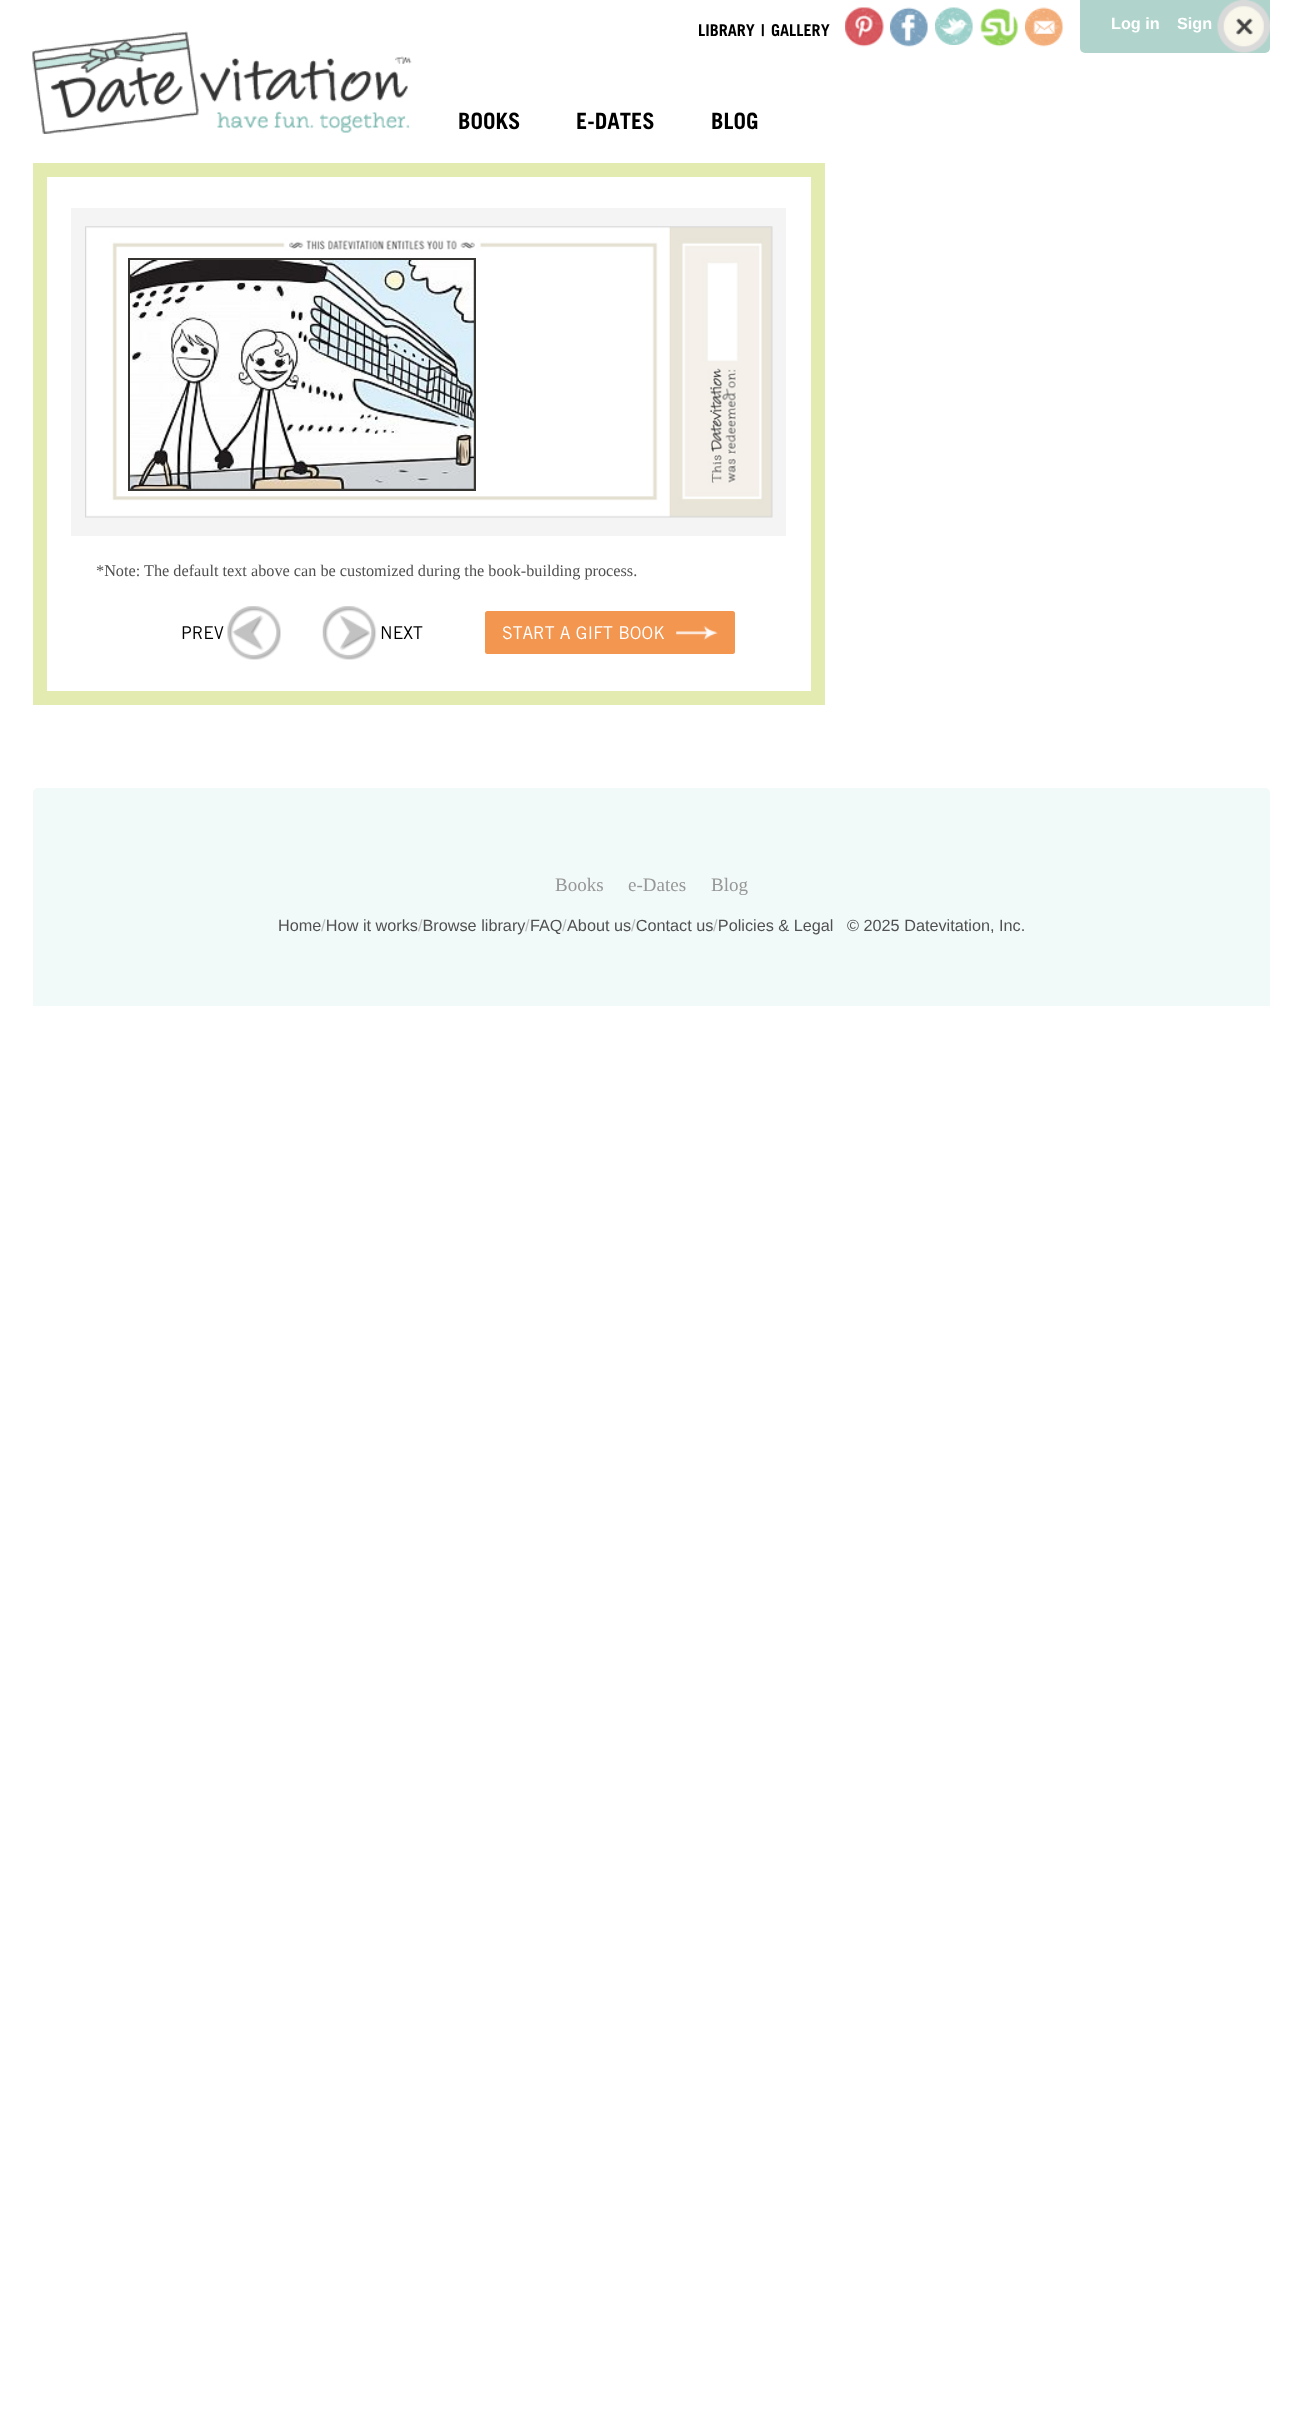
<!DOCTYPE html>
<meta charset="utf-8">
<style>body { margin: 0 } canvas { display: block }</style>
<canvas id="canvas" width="1302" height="2434"></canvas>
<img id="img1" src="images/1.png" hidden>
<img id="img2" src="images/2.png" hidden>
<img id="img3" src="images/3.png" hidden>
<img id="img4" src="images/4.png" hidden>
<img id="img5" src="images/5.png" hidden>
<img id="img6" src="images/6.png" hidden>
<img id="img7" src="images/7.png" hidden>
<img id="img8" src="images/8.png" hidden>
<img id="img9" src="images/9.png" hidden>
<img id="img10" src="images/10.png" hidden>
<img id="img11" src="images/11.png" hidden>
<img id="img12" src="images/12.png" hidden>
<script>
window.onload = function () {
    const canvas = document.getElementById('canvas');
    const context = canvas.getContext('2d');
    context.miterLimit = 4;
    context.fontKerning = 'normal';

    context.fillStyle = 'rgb(255, 255, 255)';
    context.fillRect(0, 0, 1302, 2434);
    context.drawImage(document.getElementById('img1'), 845, 7, 39, 40);
    context.drawImage(document.getElementById('img2'), 890, 7, 39, 40);
    context.drawImage(document.getElementById('img3'), 935, 7, 38, 38);
    context.drawImage(document.getElementById('img4'), 980, 8, 39, 39);
    context.drawImage(document.getElementById('img5'), 1025, 7, 39, 40);
    context.fillStyle = 'rgb(176, 212, 204)';
    context.beginPath();
    context.roundRect(1080, 0, 190, 53, [0, 0, 5, 5]);
    context.fill();
    context.drawImage(document.getElementById('img6'), 32, 31, 380, 103);
    context.drawImage(document.getElementById('img7'), 1217, 0, 53, 53);
    context.strokeStyle = 'rgb(228, 235, 176)';
    context.lineWidth = 14;
    context.strokeRect(40, 170, 778, 528);
    context.fillStyle = 'rgb(244, 244, 244)';
    context.fillRect(71, 208, 715, 328);
    context.drawImage(document.getElementById('img8'), 85, 226, 688, 292);
    context.strokeStyle = 'rgb(54, 53, 49)';
    context.lineWidth = 3;
    context.strokeRect(129.5, 259.5, 345, 230);
    context.drawImage(document.getElementById('img9'), 130, 260, 344, 229);
    context.drawImage(document.getElementById('img10'), 227, 606, 54, 54);
    context.drawImage(document.getElementById('img11'), 322, 606, 55, 54);
    context.fillStyle = 'rgb(243, 150, 80)';
    context.beginPath();
    context.roundRect(485, 611, 250, 43, 2.5);
    context.fill();
    context.drawImage(document.getElementById('img12'), 676, 626, 42, 14);
    context.fillStyle = 'rgb(241, 250, 249)';
    context.beginPath();
    context.roundRect(33, 788, 1237, 218, [5, 5, 0, 0]);
    context.fill();
    context.font = 'bold 16.25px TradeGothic';
    context.fillStyle = 'rgb(0, 0, 0)';
    context.fillText('LIBRARY', 698, 36);
    context.fillText('|', 761, 36);
    context.fillText('GALLERY', 771, 36);
    context.font = 'bold 16.25px Liberation Sans';
    context.fillStyle = 'rgb(255, 255, 255)';
    context.fillText('Log in', 1111, 29);
    context.fillText('Sign', 1177, 29);
    context.font = 'bold 22.5px TradeGothic';
    context.fillStyle = 'rgb(0, 0, 0)';
    context.fillText('BOOKS', 458, 129);
    context.fillText('E-DATES', 576, 129);
    context.fillText('BLOG', 711, 129);
    context.font = '16.25px Liberation Serif';
    context.fillStyle = 'rgb(81, 81, 81)';
    context.fillText('*Note: The default text above can be customized during the book-building process.', 96, 576);
    context.font = '500 17.5px TradeGothic';
    context.fillStyle = 'rgb(0, 0, 0)';
    context.fillText('PREV', 181, 639);
    context.fillText('NEXT', 380, 639);
    context.fillStyle = 'rgb(255, 255, 255)';
    context.fillText('START A GIFT BOOK', 502, 639);
    context.font = '19px Liberation Serif';
    context.fillStyle = 'rgb(151, 151, 151)';
    context.fillText('Books', 555, 891);
    context.fillText('e-Dates', 628, 891);
    context.fillText('Blog', 711, 891);
    context.font = '16.25px Liberation Sans';
    context.fillStyle = 'rgb(81, 81, 81)';
    context.fillText('Home How it works Browse library FAQ', 278, 931);
    context.fillStyle = 'rgb(186, 186, 186)';
    context.fillText('/', 321, 931);
    context.fillText('/', 418, 931);
    context.fillText('/', 525, 931);
    context.fillText('/', 562, 931);
    context.fillStyle = 'rgb(81, 81, 81)';
    context.fillText('About us Contact us Policies & Legal', 567, 931);
    context.fillStyle = 'rgb(186, 186, 186)';
    context.fillText('/', 631, 931);
    context.fillText('/', 713, 931);
    context.fillStyle = 'rgb(81, 81, 81)';
    context.fillText('© 2025 Datevitation, Inc.', 847, 931);
};
</script>
